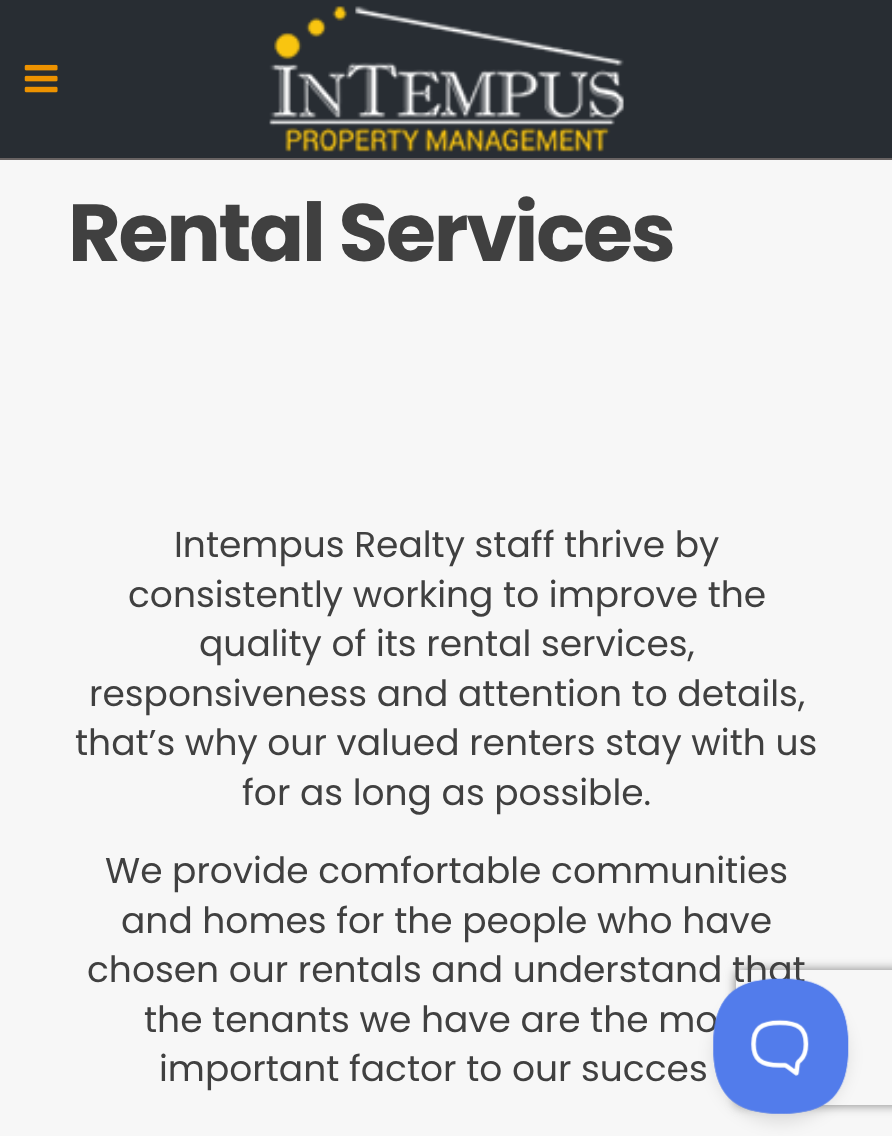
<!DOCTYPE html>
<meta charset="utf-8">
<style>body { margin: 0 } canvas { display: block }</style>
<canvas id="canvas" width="892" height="1136"></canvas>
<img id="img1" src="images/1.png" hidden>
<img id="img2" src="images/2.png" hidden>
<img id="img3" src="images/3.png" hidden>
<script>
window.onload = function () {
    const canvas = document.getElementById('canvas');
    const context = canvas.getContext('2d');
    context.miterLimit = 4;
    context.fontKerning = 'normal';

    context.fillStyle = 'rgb(247, 247, 247)';
    context.fillRect(0, 0, 892, 1136);
    context.fillStyle = 'rgb(105, 99, 99)';
    context.fillRect(0, 158, 892, 2);
    context.fillStyle = 'rgb(40, 45, 51)';
    context.fillRect(0, 0, 892, 158);
    context.drawImage(document.getElementById('img1'), 24, 64, 34, 29);
    context.drawImage(document.getElementById('img2'), 269, 6, 355, 146);
    context.save();
    context.beginPath();
    context.moveTo(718, 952);
    context.lineTo(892, 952);
    context.lineTo(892, 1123);
    context.lineTo(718, 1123);
    context.closePath();
    context.moveTo(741, 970);
    context.lineTo(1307, 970);
    context.bezierCurveTo(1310, 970, 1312, 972, 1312, 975);
    context.lineTo(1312, 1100);
    context.bezierCurveTo(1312, 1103, 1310, 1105, 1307, 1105);
    context.lineTo(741, 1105);
    context.bezierCurveTo(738, 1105, 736, 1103, 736, 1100);
    context.lineTo(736, 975);
    context.bezierCurveTo(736, 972, 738, 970, 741, 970);
    context.closePath();
    context.clip('evenodd');
    context.fillStyle = 'rgb(128, 128, 128)';
    context.filter = 'blur(5.5px)';
    context.beginPath();
    context.roundRect(736, 970, 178, 135, 5);
    context.fill();
    context.filter = 'none';
    context.restore();
    context.fillStyle = 'rgba(0, 0, 0, 0.1)';
    context.filter = 'blur(8px)';
    context.beginPath();
    context.roundRect(713, 988, 135, 135, 67.5);
    context.fill();
    context.filter = 'none';
    context.letterSpacing = '-2.25px';
    context.font = 'bold 81px Poppins';
    context.fillStyle = 'rgb(64, 64, 64)';
    context.fillText('Rental Services', 68, 261);
    context.letterSpacing = '0px';
    context.font = '36px Poppins';
    context.fillText('Intempus Realty staff thrive by', 174, 557);
    context.fillText('consistently working to improve the', 128, 607);
    context.fillText('quality of its rental services,', 199, 656);
    context.fillText('responsiveness and attention to details,', 89, 706);
    context.fillText('that’s why our valued renters stay with us', 75, 755);
    context.fillText('for as long as possible.', 242, 805);
    context.fillText('We provide comfortable communities', 105, 883);
    context.fillText('and homes for the people who have', 121, 933);
    context.fillText('chosen our rentals and understand that', 87, 982);
    context.fillText('the tenants we have are the mo', 144, 1032);
    context.fillText('important factor to our succes', 159, 1081);
    context.drawImage(document.getElementById('img3'), 713, 978, 136, 136);
};
</script>
